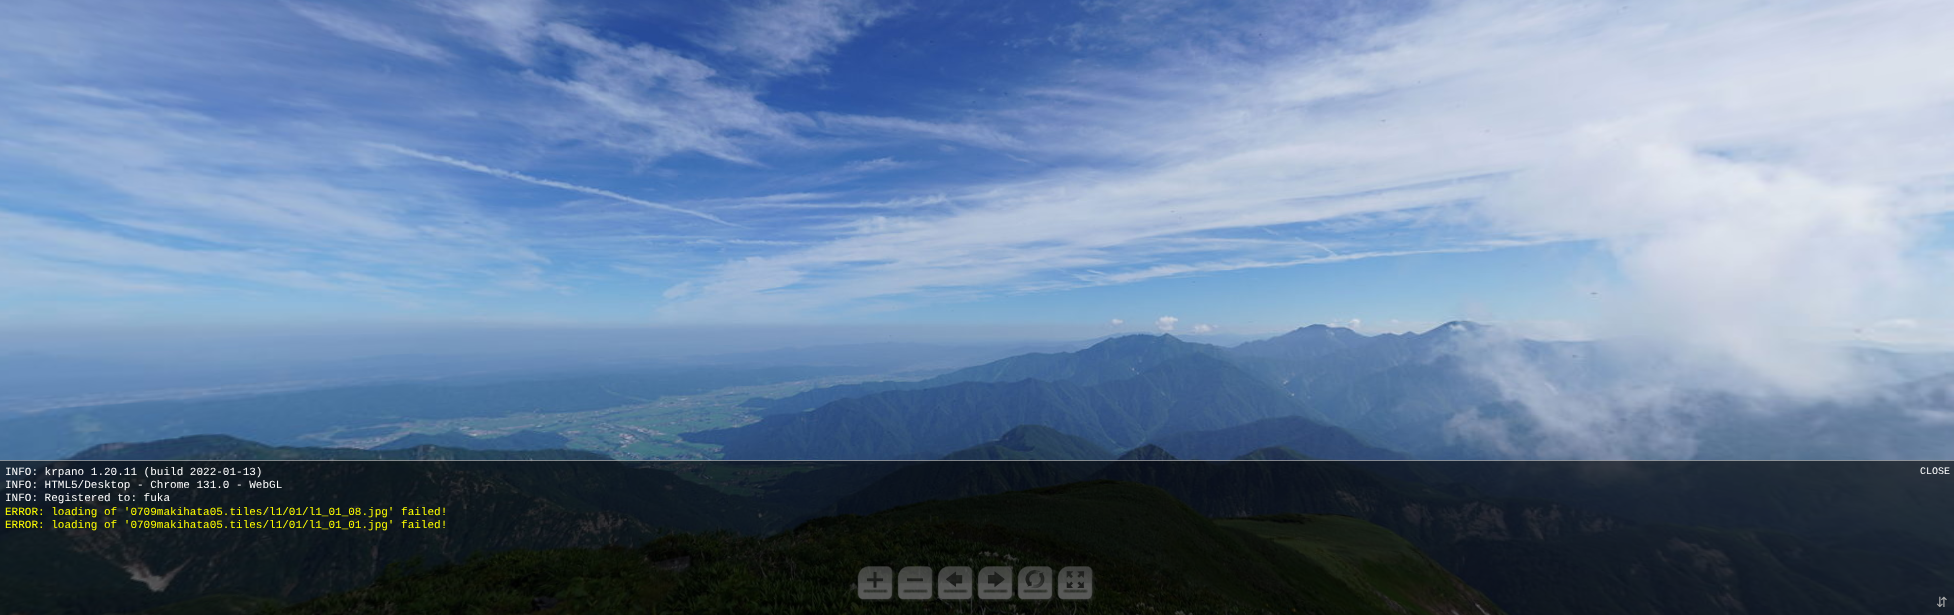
<!DOCTYPE html>
<meta charset="utf-8">
<style>body { margin: 0 } canvas { display: block }</style>
<canvas id="canvas" width="1954" height="615"></canvas>
<img id="img1" src="images/1.png" hidden>
<img id="img2" src="images/2.png" hidden>
<img id="img3" src="images/3.png" hidden>
<img id="img4" src="images/4.png" hidden>
<img id="img5" src="images/5.png" hidden>
<img id="img6" src="images/6.png" hidden>
<img id="img7" src="images/7.png" hidden>
<script>
window.onload = function () {
    const canvas = document.getElementById('canvas');
    const context = canvas.getContext('2d');
    context.miterLimit = 4;
    context.fontKerning = 'normal';

    context.fillStyle = 'rgb(255, 255, 255)';
    context.fillRect(0, 0, 1954, 615);
    context.drawImage(document.getElementById('img1'), 0, 0, 1954, 615);
    context.drawImage(document.getElementById('img2'), 857, 566, 38, 36);
    context.drawImage(document.getElementById('img3'), 897, 566, 38, 36);
    context.drawImage(document.getElementById('img4'), 937, 566, 38, 36);
    context.drawImage(document.getElementById('img5'), 977, 566, 38, 36);
    context.drawImage(document.getElementById('img6'), 1017, 566, 38, 36);
    context.drawImage(document.getElementById('img7'), 1057, 566, 38, 36);
    context.fillStyle = 'rgba(0, 0, 0, 0.6)';
    context.fillRect(0, 460, 1954, 155);
    context.fillStyle = 'rgba(255, 255, 255, 0.48)';
    context.fillRect(0, 460, 1954, 1);
    context.font = '11px Liberation Mono';
    context.fillStyle = 'rgb(255, 255, 255)';
    context.fillText('INFO: krpano 1.20.11 (build 2022-01-13)', 5, 475);
    context.fillText('INFO: HTML5/Desktop - Chrome 131.0 - WebGL', 5, 488);
    context.fillText('INFO: Registered to: fuka', 5, 501);
    context.fillStyle = 'rgb(255, 255, 0)';
    context.fillText('ERROR: loading of \'0709makihata05.tiles/l1/01/l1_01_08.jpg\' failed!', 5, 515);
    context.fillText('ERROR: loading of \'0709makihata05.tiles/l1/01/l1_01_01.jpg\' failed!', 5, 528);
    context.font = '10px Liberation Mono';
    context.fillStyle = 'rgb(255, 255, 255)';
    context.fillText('CLOSE', 1920, 474);
    context.font = '14px DejaVu Sans';
    context.fillStyle = 'rgb(170, 170, 170)';
    context.fillText('⇵', 1936, 607);
};
</script>
